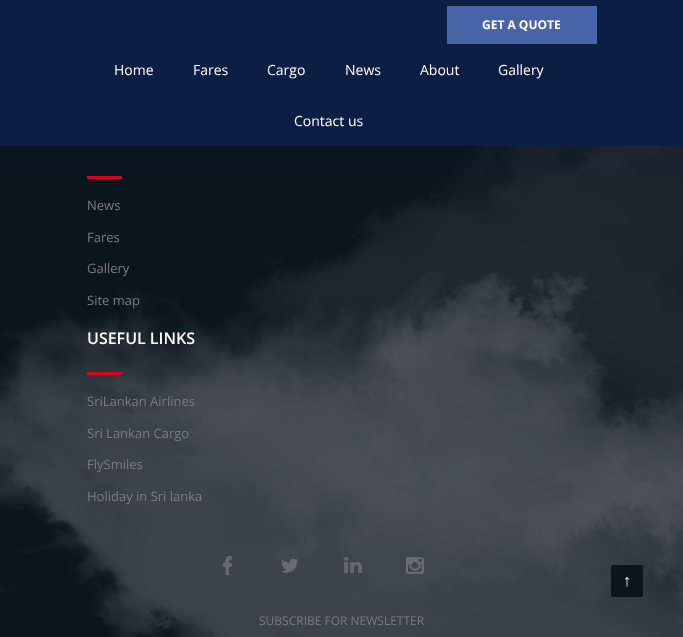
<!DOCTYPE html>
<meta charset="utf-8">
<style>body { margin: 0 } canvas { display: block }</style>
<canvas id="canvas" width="683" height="637"></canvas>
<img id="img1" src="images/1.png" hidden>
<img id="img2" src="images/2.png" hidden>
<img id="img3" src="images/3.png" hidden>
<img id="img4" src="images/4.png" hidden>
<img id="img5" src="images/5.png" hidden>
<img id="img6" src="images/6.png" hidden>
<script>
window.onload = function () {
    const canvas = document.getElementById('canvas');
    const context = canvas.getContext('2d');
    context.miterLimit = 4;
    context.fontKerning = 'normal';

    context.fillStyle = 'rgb(11, 21, 30)';
    context.fillRect(0, 0, 683, 637);
    context.fillStyle = 'rgb(13, 30, 69)';
    context.fillRect(0, 0, 683, 146);
    context.fillStyle = 'rgb(71, 100, 166)';
    context.fillRect(447, 6, 150, 38);
    context.drawImage(document.getElementById('img1'), 96, 146, 587, 478);
    context.drawImage(document.getElementById('img2'), 0, 272, 683, 365);
    context.fillStyle = 'rgb(220, 0, 28)';
    context.fillRect(87, 176, 35, 3);
    context.fillRect(87, 372, 35, 3);
    context.drawImage(document.getElementById('img3'), 223, 556, 9, 19);
    context.drawImage(document.getElementById('img4'), 281, 558, 18, 15);
    context.drawImage(document.getElementById('img5'), 344, 557, 18, 16);
    context.drawImage(document.getElementById('img6'), 406, 557, 18, 17);
    context.fillStyle = 'rgb(11, 21, 30)';
    context.beginPath();
    context.roundRect(611, 565, 32, 32, 2);
    context.fill();
    context.font = 'bold 12px Open Sans';
    context.fillStyle = 'rgb(255, 255, 255)';
    context.fillText('GET A QUOTE', 482, 29);
    context.font = '14px Open Sans';
    context.fillText('Home', 114, 75);
    context.fillText('Fares', 193, 75);
    context.fillText('Cargo', 267, 75);
    context.fillText('News', 345, 75);
    context.fillText('About', 420, 75);
    context.fillText('Gallery', 498, 75);
    context.fillText('Contact us', 294, 126);
    context.font = '13px Open Sans';
    context.fillStyle = 'rgb(125, 125, 125)';
    context.fillText('News', 87, 210);
    context.fillText('Fares', 87, 242);
    context.fillText('Gallery', 87, 273);
    context.fillText('Site map', 87, 305);
    context.font = '600 16px Open Sans';
    context.fillStyle = 'rgb(255, 255, 255)';
    context.fillText('USEFUL LINKS', 87, 344);
    context.font = '13px Open Sans';
    context.fillStyle = 'rgb(125, 125, 125)';
    context.fillText('SriLankan Airlines', 87, 406);
    context.fillText('Sri Lankan Cargo', 87, 438);
    context.fillText('FlySmiles', 87, 469);
    context.fillText('Holiday in Sri lanka', 87, 501);
    context.font = '12px Open Sans';
    context.fillText('SUBSCRIBE FOR NEWSLETTER', 259, 625);
    context.font = '16px Liberation Sans';
    context.fillStyle = 'rgb(255, 255, 255)';
    context.fillText('↑', 623, 586);
};
</script>
